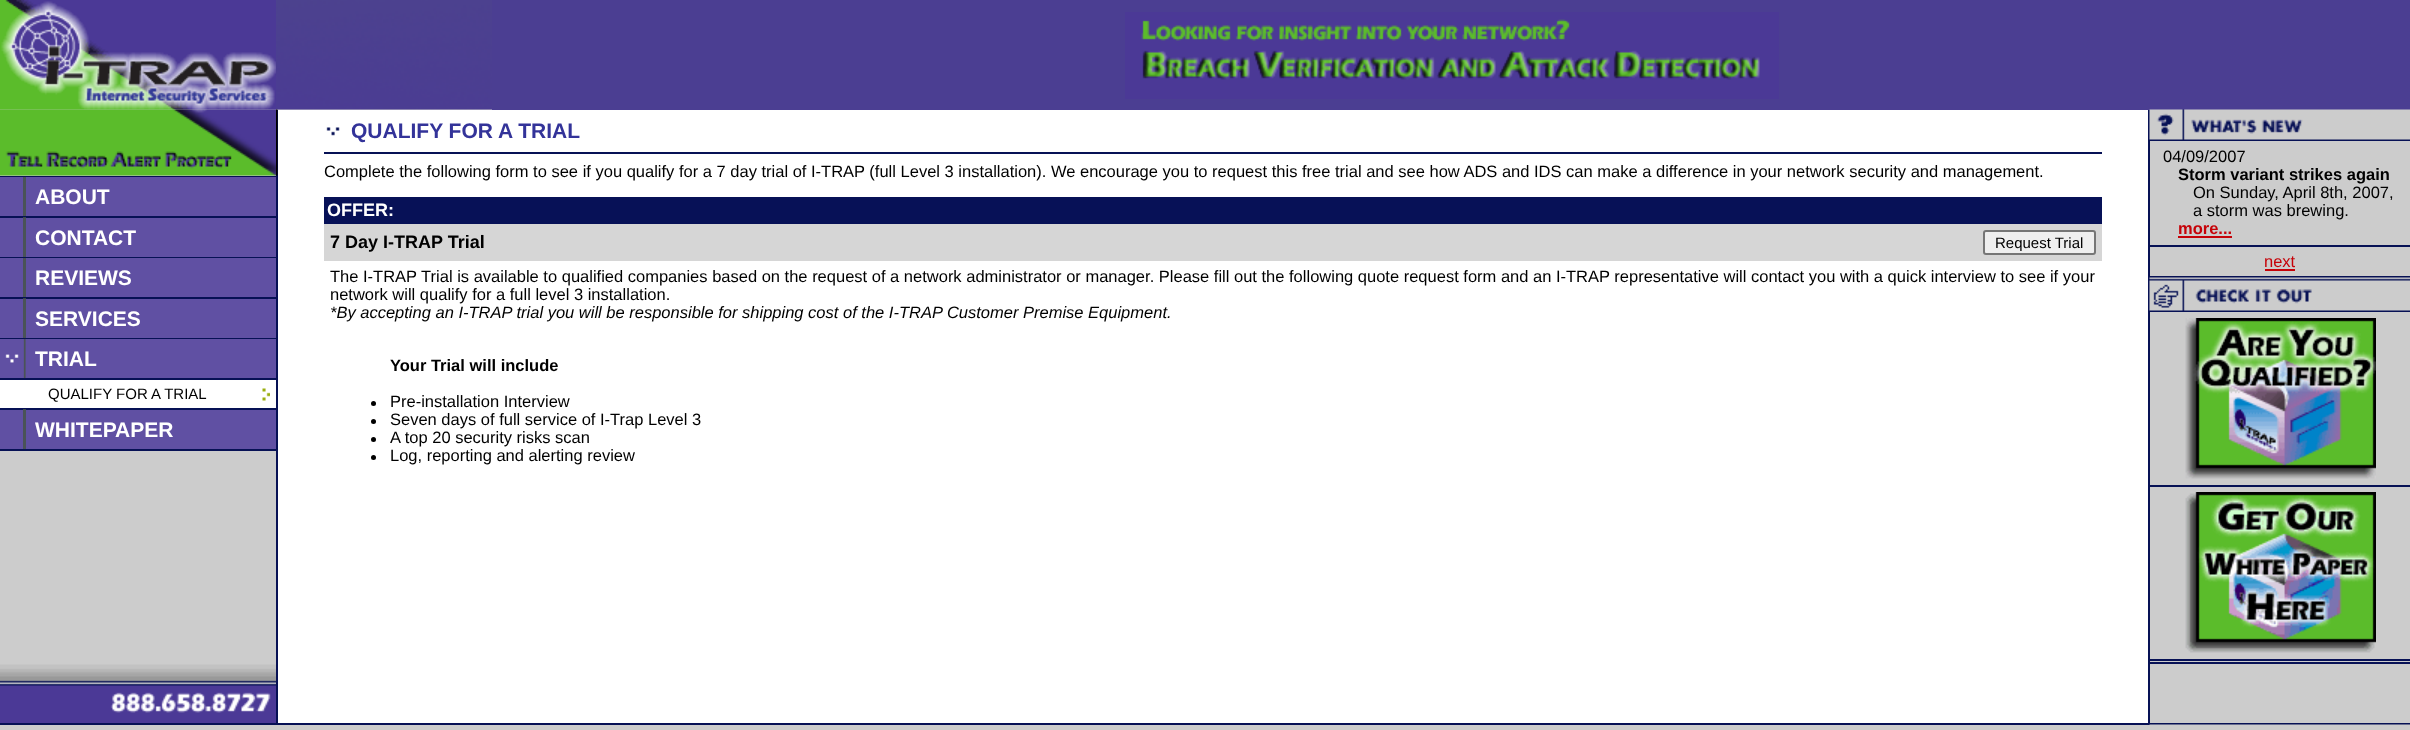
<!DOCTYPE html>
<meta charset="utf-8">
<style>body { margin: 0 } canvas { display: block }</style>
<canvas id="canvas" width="2410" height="730"></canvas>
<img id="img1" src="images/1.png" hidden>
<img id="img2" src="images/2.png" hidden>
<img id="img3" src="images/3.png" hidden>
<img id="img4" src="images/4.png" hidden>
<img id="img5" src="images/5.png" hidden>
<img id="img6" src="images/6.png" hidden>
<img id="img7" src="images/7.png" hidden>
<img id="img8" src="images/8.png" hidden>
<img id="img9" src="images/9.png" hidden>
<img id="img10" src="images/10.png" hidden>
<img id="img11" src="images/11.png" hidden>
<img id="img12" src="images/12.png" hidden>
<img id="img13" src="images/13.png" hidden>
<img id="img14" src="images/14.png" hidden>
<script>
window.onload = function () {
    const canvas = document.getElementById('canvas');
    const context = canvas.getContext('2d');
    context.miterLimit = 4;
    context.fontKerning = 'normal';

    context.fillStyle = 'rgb(204, 204, 204)';
    context.fillRect(0, 0, 2410, 730);
    context.drawImage(document.getElementById('img1'), 0, 0, 276, 110);
    context.drawImage(document.getElementById('img2'), 276, 0, 216, 110);
    context.fillStyle = 'rgb(75, 62, 146)';
    context.fillRect(492, 0, 1918, 110);
    context.drawImage(document.getElementById('img3'), 1125, 12, 654, 87);
    context.drawImage(document.getElementById('img4'), 0, 109, 276, 67);
    context.fillStyle = 'rgb(7, 17, 85)';
    context.fillRect(0, 176, 276, 1);
    context.fillStyle = 'rgb(96, 80, 163)';
    context.fillRect(0, 177, 23, 39);
    context.fillStyle = 'rgb(74, 83, 87)';
    context.fillRect(23, 177, 3, 39);
    context.fillStyle = 'rgb(96, 80, 163)';
    context.fillRect(26, 177, 250, 39);
    context.fillStyle = 'rgb(7, 17, 85)';
    context.fillRect(0, 216, 276, 2);
    context.fillStyle = 'rgb(57, 71, 72)';
    context.fillRect(23, 217, 3, 1);
    context.fillStyle = 'rgb(96, 80, 163)';
    context.fillRect(0, 218, 23, 39);
    context.fillStyle = 'rgb(74, 83, 87)';
    context.fillRect(23, 218, 3, 39);
    context.fillStyle = 'rgb(96, 80, 163)';
    context.fillRect(26, 218, 250, 39);
    context.fillStyle = 'rgb(7, 17, 85)';
    context.fillRect(0, 257, 276, 1);
    context.fillStyle = 'rgb(96, 80, 163)';
    context.fillRect(0, 258, 23, 39);
    context.fillStyle = 'rgb(74, 83, 87)';
    context.fillRect(23, 258, 3, 39);
    context.fillStyle = 'rgb(96, 80, 163)';
    context.fillRect(26, 258, 250, 39);
    context.fillStyle = 'rgb(7, 17, 85)';
    context.fillRect(0, 297, 276, 2);
    context.fillStyle = 'rgb(57, 71, 72)';
    context.fillRect(23, 298, 3, 1);
    context.fillStyle = 'rgb(96, 80, 163)';
    context.fillRect(0, 299, 23, 39);
    context.fillStyle = 'rgb(74, 83, 87)';
    context.fillRect(23, 299, 3, 39);
    context.fillStyle = 'rgb(96, 80, 163)';
    context.fillRect(26, 299, 250, 39);
    context.fillStyle = 'rgb(7, 17, 85)';
    context.fillRect(0, 338, 276, 1);
    context.fillStyle = 'rgb(96, 80, 163)';
    context.fillRect(0, 339, 276, 39);
    context.drawImage(document.getElementById('img5'), 5, 339, 21, 39);
    context.fillStyle = 'rgb(7, 17, 85)';
    context.fillRect(0, 378, 276, 2);
    context.fillStyle = 'rgb(255, 255, 255)';
    context.fillRect(0, 380, 276, 28);
    context.drawImage(document.getElementById('img6'), 262, 388, 8, 13);
    context.fillStyle = 'rgb(7, 17, 85)';
    context.fillRect(0, 408, 276, 2);
    context.fillStyle = 'rgb(57, 71, 72)';
    context.fillRect(23, 409, 3, 1);
    context.fillStyle = 'rgb(96, 80, 163)';
    context.fillRect(0, 410, 23, 39);
    context.fillStyle = 'rgb(74, 83, 87)';
    context.fillRect(23, 410, 3, 39);
    context.fillStyle = 'rgb(96, 80, 163)';
    context.fillRect(26, 410, 250, 39);
    context.fillStyle = 'rgb(7, 17, 85)';
    context.fillRect(0, 449, 276, 2);
    context.fillRect(276, 110, 2, 613);
    context.drawImage(document.getElementById('img7'), 276, 109, 2, 67);
    context.fillStyle = 'rgb(255, 255, 255)';
    context.fillRect(278, 110, 1870, 613);
    context.drawImage(document.getElementById('img8'), 326, 127, 14, 9);
    context.fillStyle = 'rgb(7, 17, 85)';
    context.fillRect(324, 152, 1778, 2);
    context.fillStyle = 'rgb(7, 17, 87)';
    context.fillRect(324, 197, 1778, 27);
    context.fillStyle = 'rgb(214, 214, 214)';
    context.fillRect(324, 224, 1778, 37);
    context.fillStyle = 'rgb(239, 239, 239)';
    context.beginPath();
    context.roundRect(1984, 231, 111, 23, 2);
    context.fill();
    context.strokeStyle = 'rgb(118, 118, 118)';
    context.lineWidth = 2;
    context.stroke();
    context.fillStyle = 'rgb(0, 0, 0)';
    context.beginPath();
    context.arc(373.5, 403.5, 2.5, 0, 2 * Math.PI);
    context.fill();
    context.beginPath();
    context.arc(373.5, 421.5, 2.5, 0, 2 * Math.PI);
    context.fill();
    context.beginPath();
    context.arc(373.5, 439.5, 2.5, 0, 2 * Math.PI);
    context.fill();
    context.beginPath();
    context.arc(373.5, 457.5, 2.5, 0, 2 * Math.PI);
    context.fill();
    context.fillStyle = 'rgb(7, 17, 85)';
    context.fillRect(2148, 110, 2, 613);
    context.drawImage(document.getElementById('img9'), 2149, 109, 261, 32);
    context.fillStyle = 'rgb(198, 2, 8)';
    context.fillRect(2178, 236, 54, 2);
    context.fillStyle = 'rgb(7, 17, 85)';
    context.fillRect(2150, 245, 260, 2);
    context.fillStyle = 'rgb(198, 2, 8)';
    context.fillRect(2265, 269, 30, 2);
    context.drawImage(document.getElementById('img10'), 2149, 276, 261, 36);
    context.drawImage(document.getElementById('img11'), 2185, 318, 191, 161);
    context.fillStyle = 'rgb(7, 17, 85)';
    context.fillRect(2150, 485, 260, 2);
    context.drawImage(document.getElementById('img12'), 2185, 492, 191, 161);
    context.fillRect(2150, 659, 260, 2);
    context.fillRect(2150, 662, 260, 2);
    context.drawImage(document.getElementById('img13'), 0, 664, 276, 59);
    context.fillRect(0, 723, 2410, 2);
    context.drawImage(document.getElementById('img14'), 2149, 724, 261, 1);
    context.font = 'bold 21px Liberation Sans';
    context.fillStyle = 'rgb(255, 255, 255)';
    context.fillText('ABOUT', 35, 204);
    context.fillText('CONTACT', 35, 245);
    context.fillText('REVIEWS', 35, 285);
    context.fillText('SERVICES', 35, 326);
    context.fillText('TRIAL', 35, 366);
    context.font = '15px Liberation Sans';
    context.fillStyle = 'rgb(0, 0, 0)';
    context.fillText('QUALIFY FOR A TRIAL', 48, 399);
    context.font = 'bold 21px Liberation Sans';
    context.fillStyle = 'rgb(255, 255, 255)';
    context.fillText('WHITEPAPER', 35, 437);
    context.fillStyle = 'rgb(51, 51, 153)';
    context.fillText('QUALIFY FOR A TRIAL', 351, 138);
    context.font = '16.5px Liberation Sans';
    context.fillStyle = 'rgb(0, 0, 0)';
    context.fillText('Complete the following form to see if you qualify for a 7 day trial of I-TRAP (full Level 3 installation). We encourage you to request this free trial and see how ADS and IDS can make a difference in your network security and management.', 324, 177);
    context.font = 'bold 18px Liberation Sans';
    context.fillStyle = 'rgb(255, 255, 255)';
    context.fillText('OFFER:', 327, 216);
    context.fillStyle = 'rgb(0, 0, 0)';
    context.fillText('7 Day I-TRAP Trial', 330, 248);
    context.font = '15px Liberation Sans';
    context.fillText('Request Trial', 1995, 248);
    context.font = '16.5px Liberation Sans';
    context.fillText('The I-TRAP Trial is available to qualified companies based on the request of a network administrator or manager. Please fill out the following quote request form and an I-TRAP representative will contact you with a quick interview to see if your', 330, 282);
    context.fillText('network will qualify for a full level 3 installation.', 330, 300);
    context.font = 'italic 16.5px Liberation Sans';
    context.fillText('*By accepting an I-TRAP trial you will be responsible for shipping cost of the I-TRAP Customer Premise Equipment.', 330, 318);
    context.font = 'bold 16.5px Liberation Sans';
    context.fillText('Your Trial will include', 390, 371);
    context.font = '16.5px Liberation Sans';
    context.fillText('Pre-installation Interview', 390, 407);
    context.fillText('Seven days of full service of I-Trap Level 3', 390, 425);
    context.fillText('A top 20 security risks scan', 390, 443);
    context.fillText('Log, reporting and alerting review', 390, 461);
    context.fillText('04/09/2007', 2163, 162);
    context.font = 'bold 16.5px Liberation Sans';
    context.fillText('Storm variant strikes again', 2178, 180);
    context.font = '16.5px Liberation Sans';
    context.fillText('On Sunday, April 8th, 2007,', 2193, 198);
    context.fillText('a storm was brewing.', 2193, 216);
    context.font = 'bold 16.5px Liberation Sans';
    context.fillStyle = 'rgb(198, 2, 8)';
    context.fillText('more...', 2178, 234);
    context.font = '16.5px Liberation Sans';
    context.fillText('next', 2264, 267);
};
</script>
